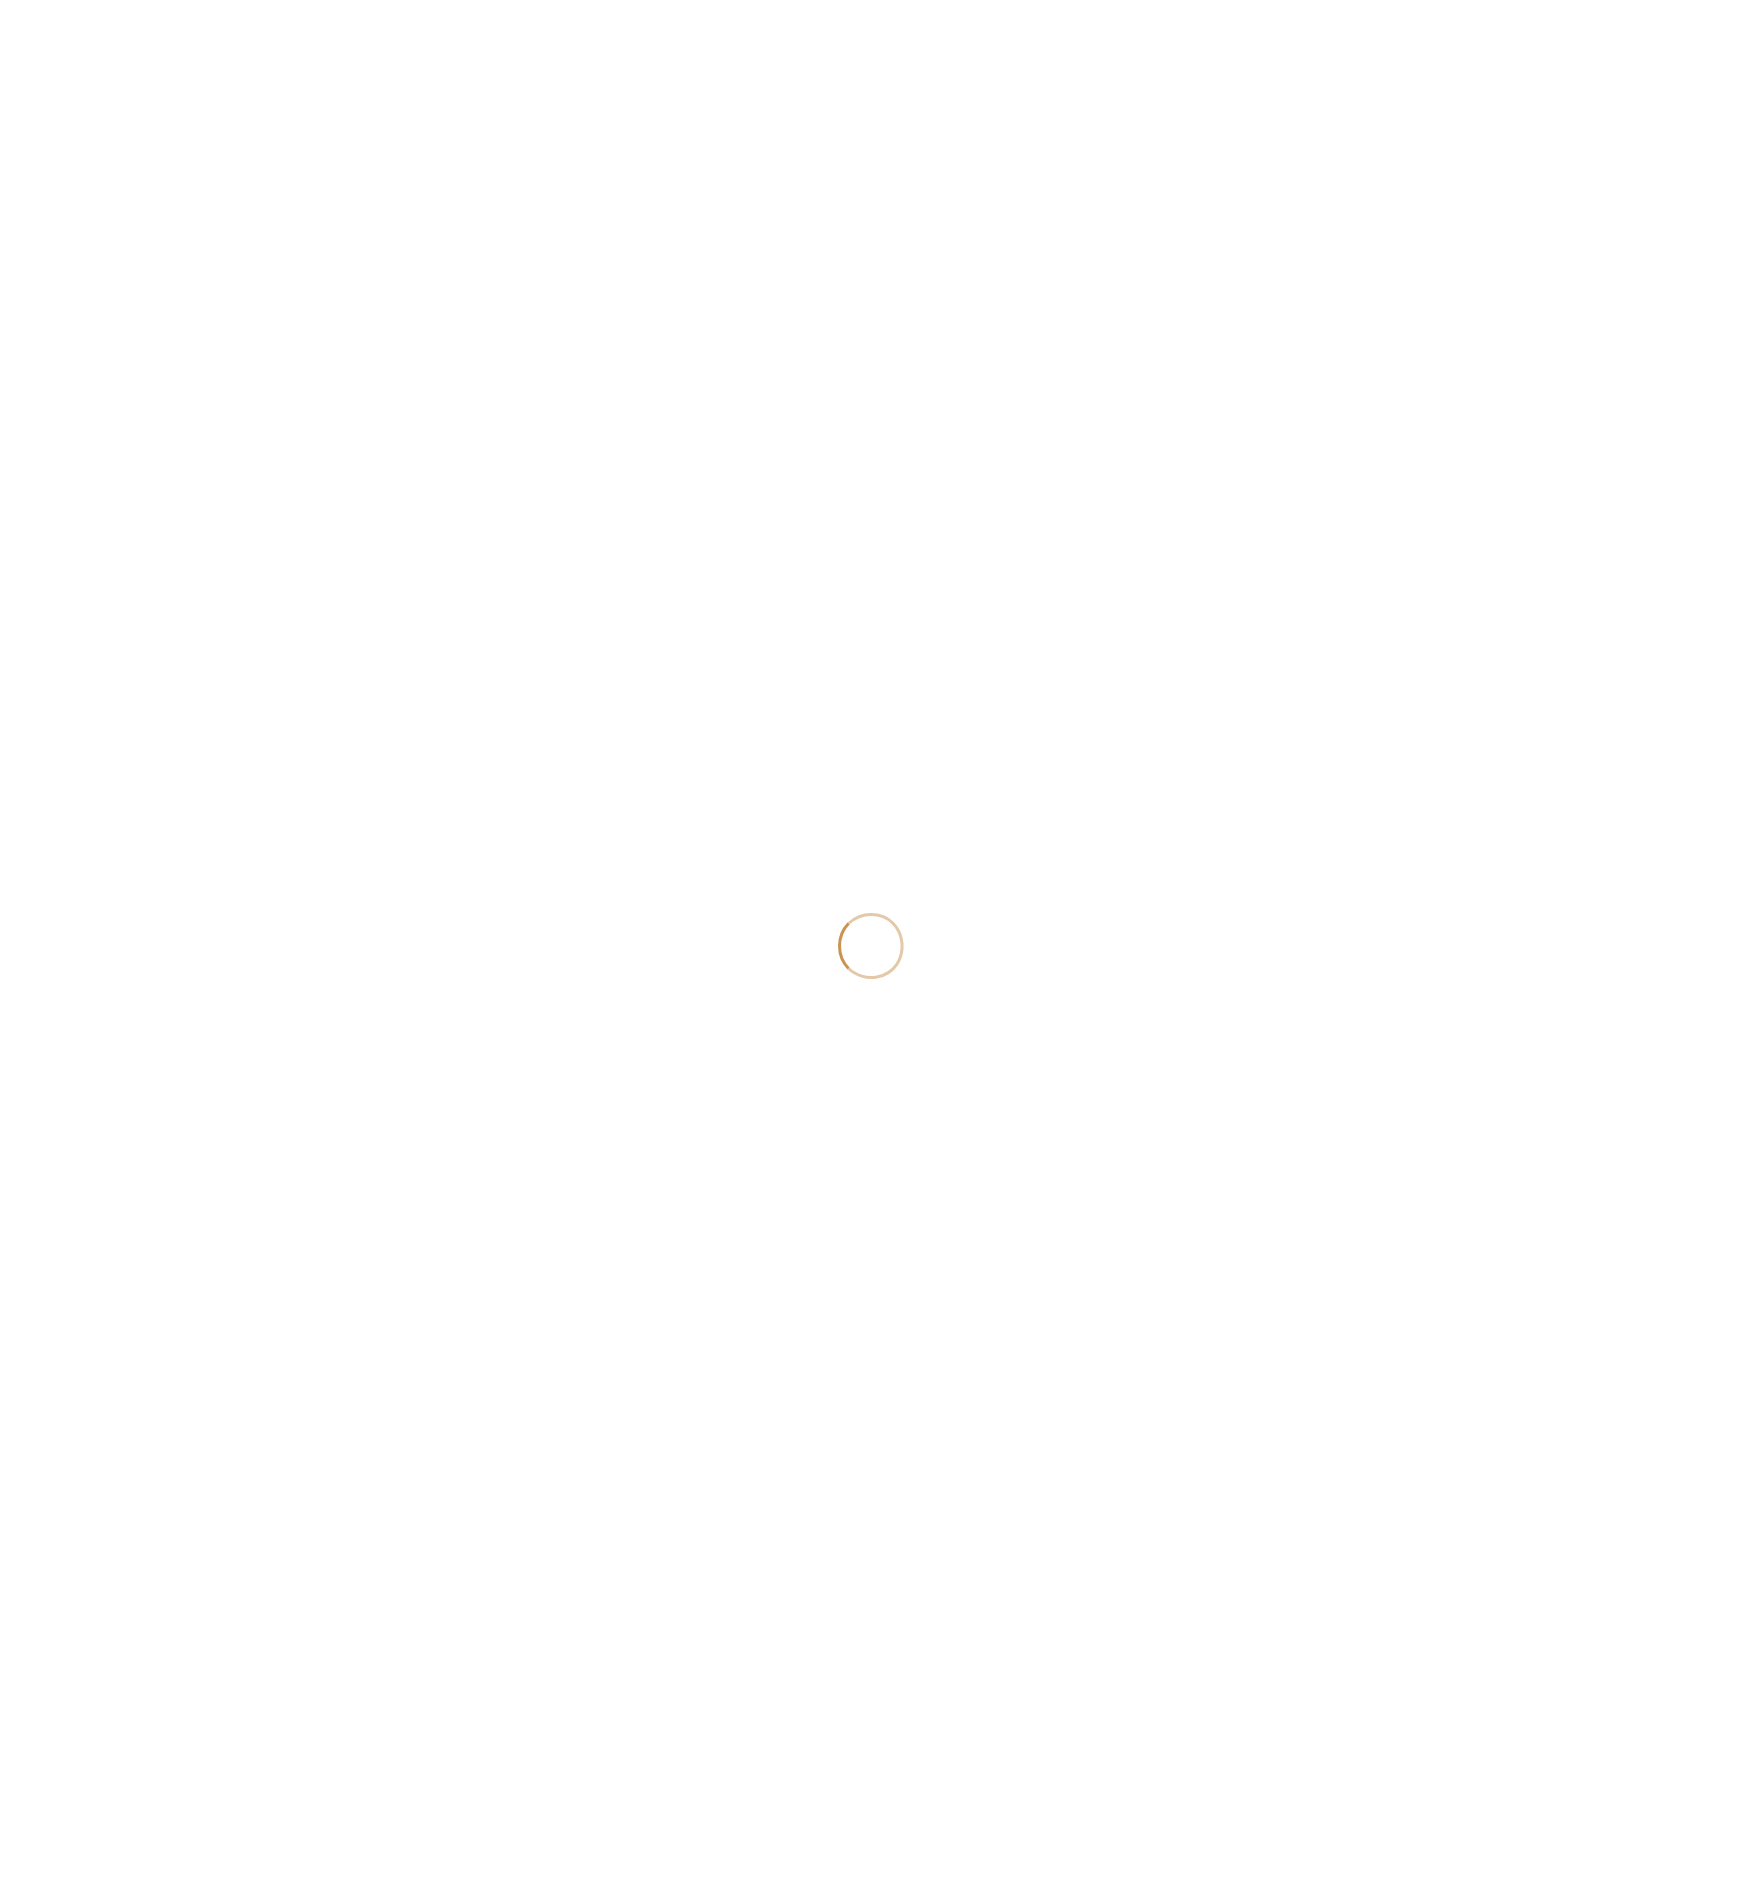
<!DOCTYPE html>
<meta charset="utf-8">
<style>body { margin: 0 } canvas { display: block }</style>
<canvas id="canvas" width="1742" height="1892"></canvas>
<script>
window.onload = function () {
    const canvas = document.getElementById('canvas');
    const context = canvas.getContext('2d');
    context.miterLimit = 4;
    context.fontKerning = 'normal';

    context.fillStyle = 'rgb(255, 255, 255)';
    context.fillRect(0, 0, 1742, 1892);
    context.beginPath();
    context.moveTo(848.5, 923.5);
    context.bezierCurveTo(854.5, 918, 862.5, 914.5, 871, 914.5);
    context.bezierCurveTo(908.5, 914.5, 914, 969.5, 877, 977);
    context.bezierCurveTo(867, 979, 856, 975.5, 848.5, 968.5);
    context.strokeStyle = 'rgb(228, 201, 168)';
    context.lineWidth = 3;
    context.stroke();
    context.beginPath();
    context.moveTo(848.5, 968.5);
    context.bezierCurveTo(836.5, 956, 836.5, 936, 848.5, 923.5);
    context.strokeStyle = 'rgb(201, 147, 80)';
    context.stroke();
};
</script>
